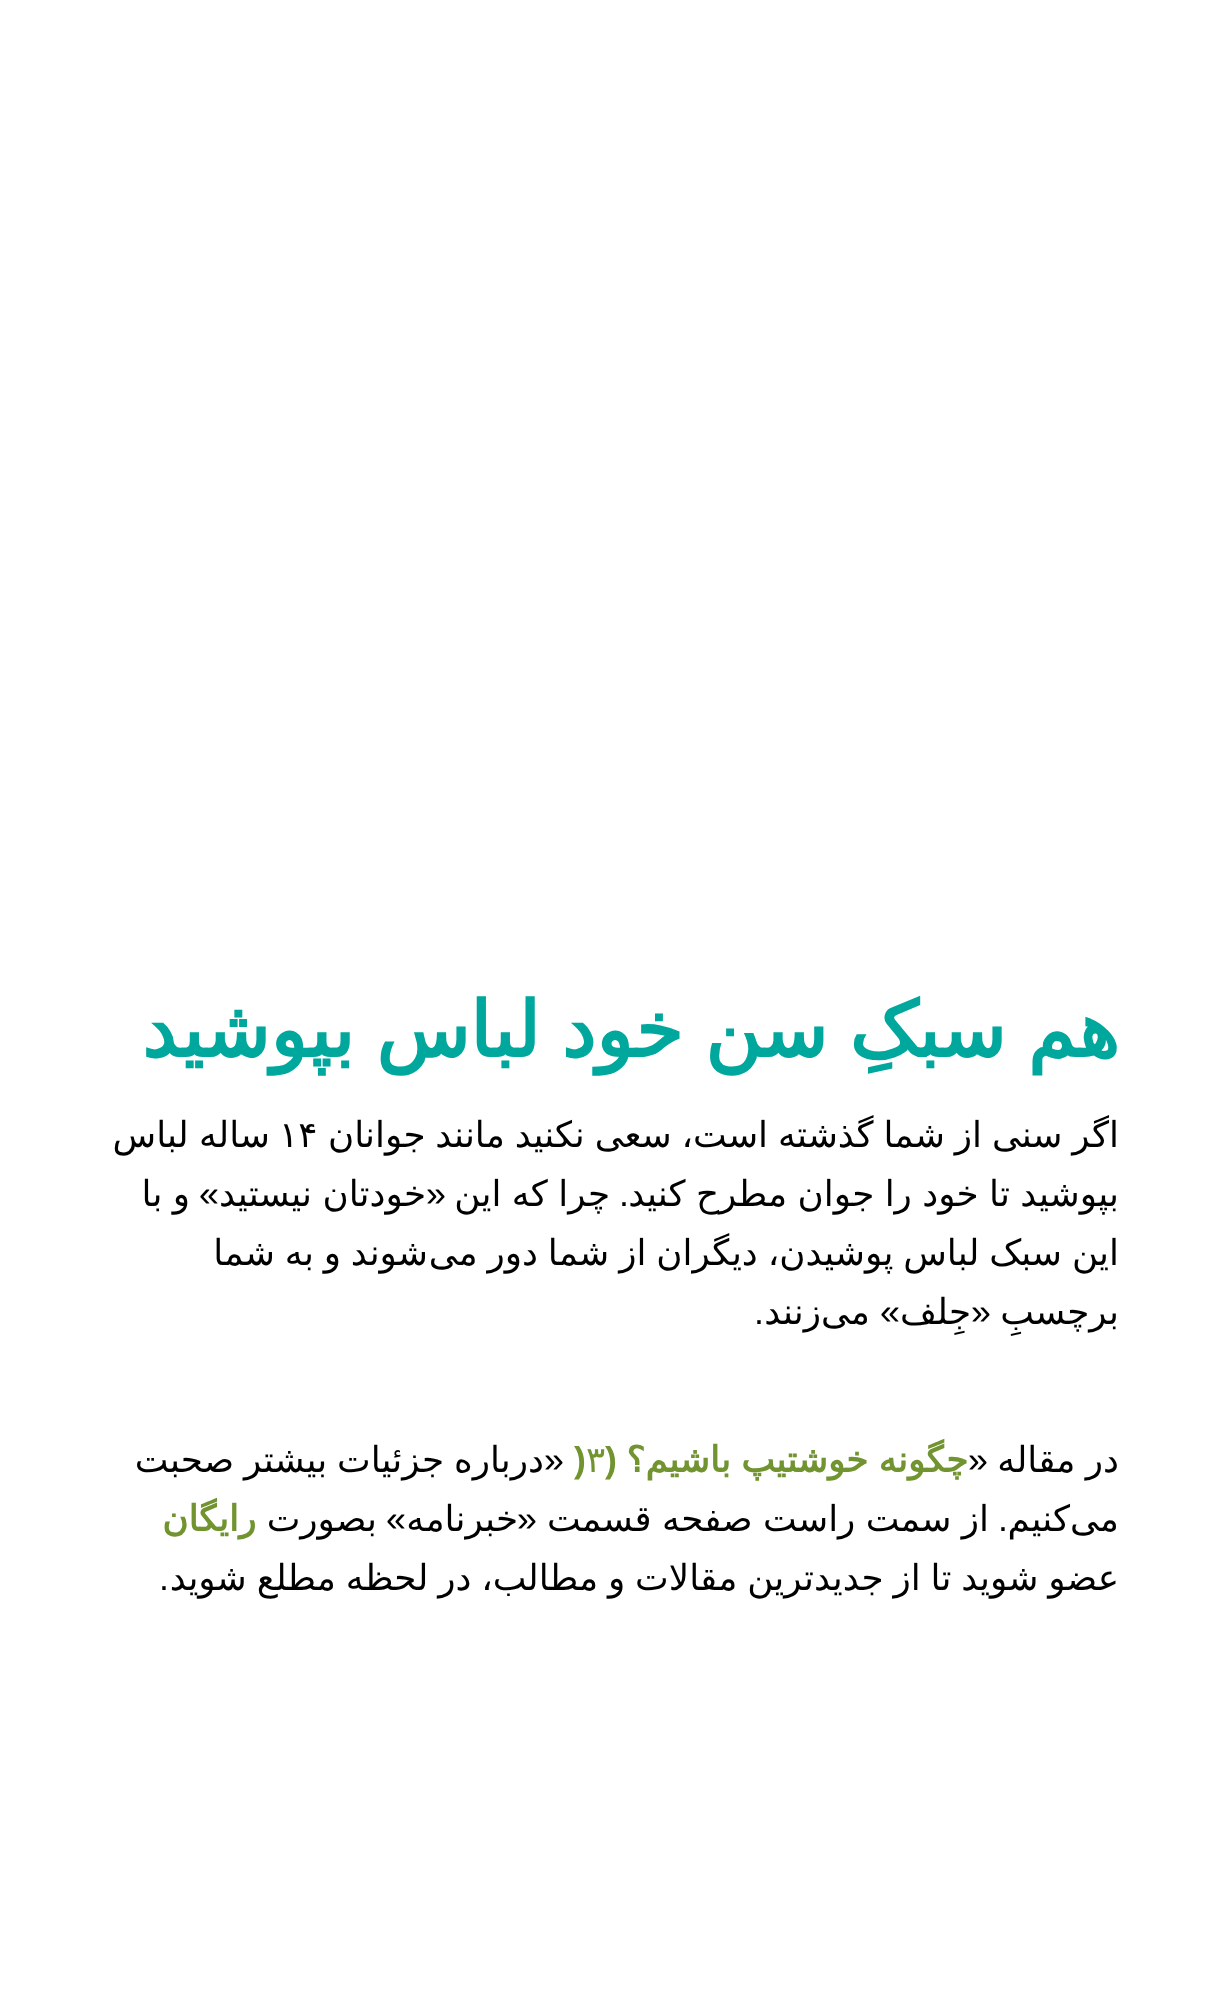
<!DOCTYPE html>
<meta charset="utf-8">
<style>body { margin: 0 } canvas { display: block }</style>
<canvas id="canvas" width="1208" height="1994"></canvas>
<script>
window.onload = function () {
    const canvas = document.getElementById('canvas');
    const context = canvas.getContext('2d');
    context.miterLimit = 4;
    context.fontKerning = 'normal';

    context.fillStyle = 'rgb(255, 255, 255)';
    context.fillRect(0, 0, 1208, 1994);
    context.wordSpacing = '-3px';
    context.direction = 'rtl';
    context.font = 'bold 77px DejaVu Sans';
    context.fillStyle = 'rgb(0, 167, 157)';
    context.fillText('هم سبکِ سن خود لباس بپوشید', 1119, 1057);
    context.wordSpacing = '-1.5px';
    context.font = '35.75px DejaVu Sans';
    context.fillStyle = 'rgb(0, 0, 0)';
    context.fillText('اگر سنی از شما گذشته است، سعی نکنید مانند جوانان', 1119, 1147);
    context.wordSpacing = '0px';
    context.direction = 'ltr';
    context.fillText('۱۴', 279, 1147);
    context.wordSpacing = '-1px';
    context.direction = 'rtl';
    context.fillText('ساله لباس', 270, 1147);
    context.fillText('بپوشید تا خود را جوان مطرح کنید', 1119, 1206);
    context.wordSpacing = '0px';
    context.font = '35.75px Liberation Sans';
    context.fillText('.', 629, 1206);
    context.wordSpacing = '-1px';
    context.font = '35.75px DejaVu Sans';
    context.fillText('چرا که این', 610, 1206);
    context.wordSpacing = '0px';
    context.font = '35.75px Liberation Sans';
    context.fillText('«', 446, 1206);
    context.wordSpacing = '-1px';
    context.font = '35.75px DejaVu Sans';
    context.fillText('خودتان نیستید', 426, 1206);
    context.wordSpacing = '0px';
    context.font = '35.75px Liberation Sans';
    context.fillText('»', 219, 1206);
    context.wordSpacing = '-1px';
    context.font = '35.75px DejaVu Sans';
    context.fillText('و با', 190, 1206);
    context.wordSpacing = '-1.5px';
    context.fillText('این سبک لباس پوشیدن، دیگران از شما دور می', 1119, 1265);
    context.fillText('شوند و به شما', 428, 1265);
    context.wordSpacing = '0px';
    context.fillText('برچسبِ', 1119, 1324);
    context.font = '35.75px Liberation Sans';
    context.fillText('«', 991, 1324);
    context.font = '35.75px DejaVu Sans';
    context.fillText('جِلف', 971, 1324);
    context.font = '35.75px Liberation Sans';
    context.fillText('»', 900, 1324);
    context.font = '35.75px DejaVu Sans';
    context.fillText('می', 870, 1324);
    context.fillText('زنند', 821, 1324);
    context.font = '35.75px Liberation Sans';
    context.fillText('.', 764, 1324);
    context.wordSpacing = '-1px';
    context.font = '35.75px DejaVu Sans';
    context.fillText('در مقاله', 1119, 1472);
    context.wordSpacing = '0px';
    context.font = '35.75px Liberation Sans';
    context.fillText('«', 988, 1472);
    context.wordSpacing = '-1px';
    context.font = 'bold 35.75px DejaVu Sans';
    context.fillStyle = 'rgb(113, 148, 48)';
    context.fillText('چگونه خوشتیپ باشیم؟', 968, 1472);
    context.wordSpacing = '0px';
    context.font = 'bold 35.75px Liberation Sans';
    context.fillText('(', 617, 1472);
    context.direction = 'ltr';
    context.font = '35.75px DejaVu Sans';
    context.fillText('۳', 586, 1472);
    context.font = 'bold 35.75px Liberation Sans';
    context.fillText(')', 574, 1472);
    context.font = '35.75px Liberation Sans';
    context.fillStyle = 'rgb(0, 0, 0)';
    context.fillText('»', 544, 1472);
    context.wordSpacing = '-1.5px';
    context.direction = 'rtl';
    context.font = '35.75px DejaVu Sans';
    context.fillText('درباره جزئیات بیشتر صحبت', 544, 1472);
    context.wordSpacing = '0px';
    context.fillText('می', 1119, 1531);
    context.fillText('کنیم', 1070, 1531);
    context.font = '35.75px Liberation Sans';
    context.fillText('.', 1008, 1531);
    context.wordSpacing = '-1px';
    context.font = '35.75px DejaVu Sans';
    context.fillText('از سمت راست صفحه قسمت', 989, 1531);
    context.wordSpacing = '0px';
    context.font = '35.75px Liberation Sans';
    context.fillText('«', 537, 1531);
    context.font = '35.75px DejaVu Sans';
    context.fillText('خبرنامه', 518, 1531);
    context.font = '35.75px Liberation Sans';
    context.fillText('»', 406, 1531);
    context.font = '35.75px DejaVu Sans';
    context.fillText('بصورت', 377, 1531);
    context.font = 'bold 35.75px DejaVu Sans';
    context.fillStyle = 'rgb(113, 148, 48)';
    context.fillText('رایگان', 256, 1531);
    context.wordSpacing = '-1.5px';
    context.font = '35.75px DejaVu Sans';
    context.fillStyle = 'rgb(0, 0, 0)';
    context.fillText('عضو شوید تا از جدیدترین مقالات و مطالب، در لحظه مطلع شوید', 1119, 1590);
    context.wordSpacing = '0px';
    context.font = '35.75px Liberation Sans';
    context.fillText('.', 169, 1590);
};
</script>
